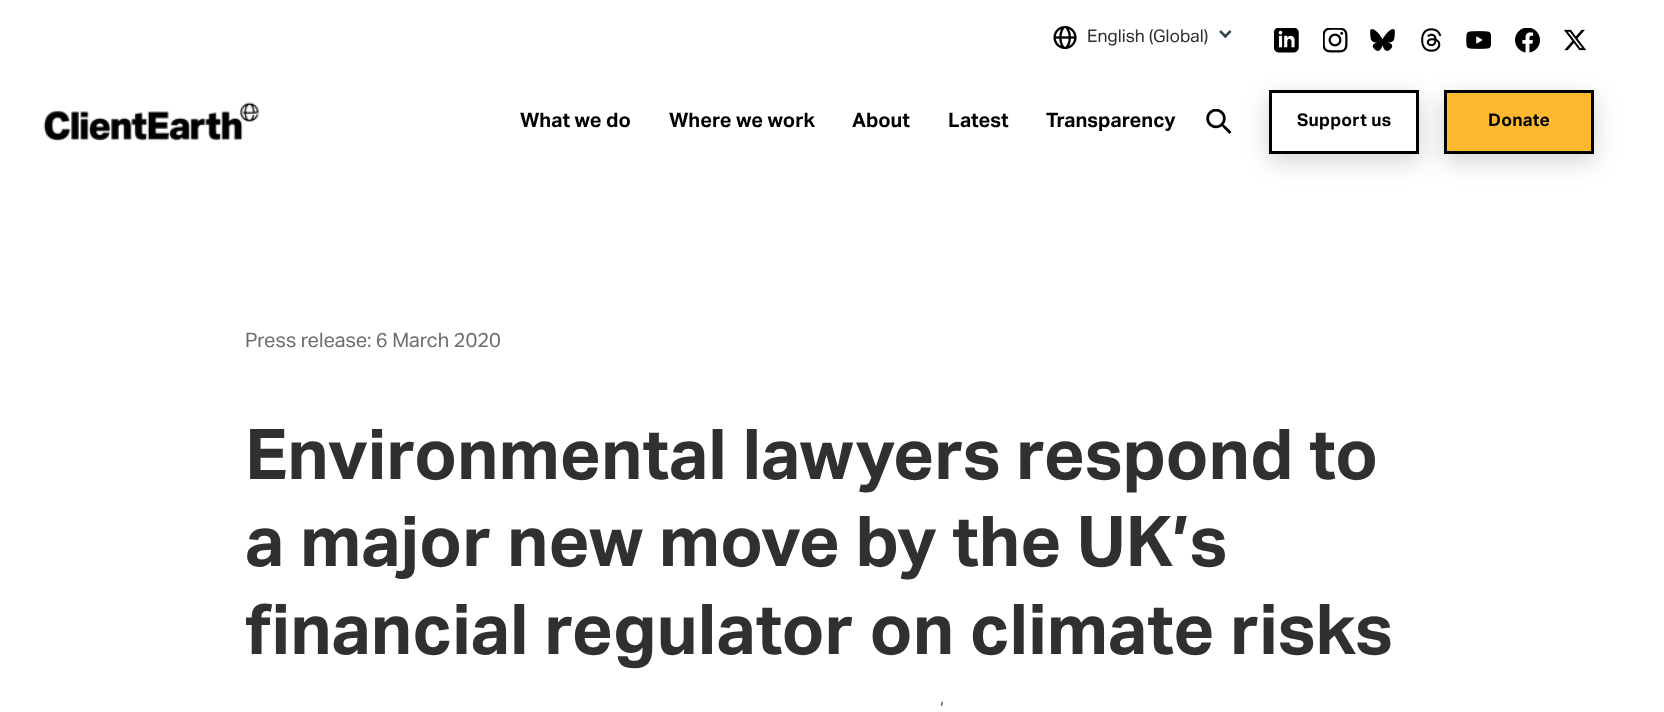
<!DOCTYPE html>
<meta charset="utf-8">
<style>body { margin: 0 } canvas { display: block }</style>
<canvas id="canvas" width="1664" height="712"></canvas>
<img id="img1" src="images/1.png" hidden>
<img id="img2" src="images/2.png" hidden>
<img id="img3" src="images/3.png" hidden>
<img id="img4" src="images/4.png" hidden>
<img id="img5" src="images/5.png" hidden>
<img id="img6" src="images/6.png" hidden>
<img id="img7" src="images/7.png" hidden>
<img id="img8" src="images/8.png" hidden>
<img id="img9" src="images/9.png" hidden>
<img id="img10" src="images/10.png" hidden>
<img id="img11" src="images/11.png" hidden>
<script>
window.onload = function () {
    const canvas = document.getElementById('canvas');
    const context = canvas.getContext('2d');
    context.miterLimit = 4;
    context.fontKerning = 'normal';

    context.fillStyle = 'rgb(255, 255, 255)';
    context.fillRect(0, 0, 1664, 712);
    context.drawImage(document.getElementById('img1'), 1053, 25, 24, 25);
    context.drawImage(document.getElementById('img2'), 1219, 30, 13, 8);
    context.drawImage(document.getElementById('img3'), 1274, 28, 25, 25);
    context.drawImage(document.getElementById('img4'), 1323, 28, 25, 25);
    context.drawImage(document.getElementById('img5'), 1370, 29, 25, 22);
    context.drawImage(document.getElementById('img6'), 1421, 28, 21, 24);
    context.drawImage(document.getElementById('img7'), 1466, 31, 25, 18);
    context.drawImage(document.getElementById('img8'), 1515, 28, 25, 25);
    context.drawImage(document.getElementById('img9'), 1564, 29, 23, 22);
    context.drawImage(document.getElementById('img10'), 43, 102, 216, 39);
    context.drawImage(document.getElementById('img11'), 1206, 109, 25, 25);
    context.fillStyle = 'rgba(0, 0, 0, 0.18)';
    context.filter = 'blur(12.5px)';
    context.beginPath();
    context.rect(1269, 98, 150, 63);
    context.fill();
    context.filter = 'none';
    context.fillStyle = 'rgb(255, 255, 255)';
    context.beginPath();
    context.rect(1270.5, 91.5, 147, 61);
    context.fill();
    context.strokeStyle = 'rgb(0, 0, 0)';
    context.lineWidth = 3;
    context.stroke();
    context.fillStyle = 'rgba(0, 0, 0, 0.18)';
    context.filter = 'blur(12.5px)';
    context.beginPath();
    context.rect(1444, 98, 150, 63);
    context.fill();
    context.filter = 'none';
    context.fillStyle = 'rgb(255, 185, 49)';
    context.beginPath();
    context.rect(1445.5, 91.5, 147, 61);
    context.fill();
    context.stroke();
    context.font = '17.5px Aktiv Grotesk';
    context.fillStyle = 'rgb(48, 48, 48)';
    context.fillText('English (Global)', 1087, 42);
    context.font = 'bold 20px Aktiv Grotesk';
    context.fillStyle = 'rgb(0, 0, 0)';
    context.fillText('What we do', 520, 127);
    context.fillText('Where we work', 669, 127);
    context.fillText('About', 852, 127);
    context.fillText('Latest', 948, 127);
    context.fillText('Transparency', 1046, 127);
    context.letterSpacing = '0.25px';
    context.font = 'bold 17.5px Aktiv Grotesk';
    context.fillText('Support us', 1297, 126);
    context.fillText('Donate', 1488, 126);
    context.letterSpacing = '0px';
    context.font = '20px Aktiv Grotesk';
    context.fillStyle = 'rgb(109, 109, 109)';
    context.fillText('Press release: 6 March 2020', 245, 347);
    context.font = 'bold 70px Aktiv Grotesk';
    context.fillStyle = 'rgb(48, 48, 48)';
    context.fillText('Environmental lawyers respond to', 245, 479);
    context.fillText('a major new move by the UK’s', 245, 566);
    context.fillText('financial regulator on climate risks', 245, 654);
    context.font = '20px Aktiv Grotesk';
    context.fillStyle = 'rgb(109, 109, 109)';
    context.fillText('’', 940, 716);
};
</script>
